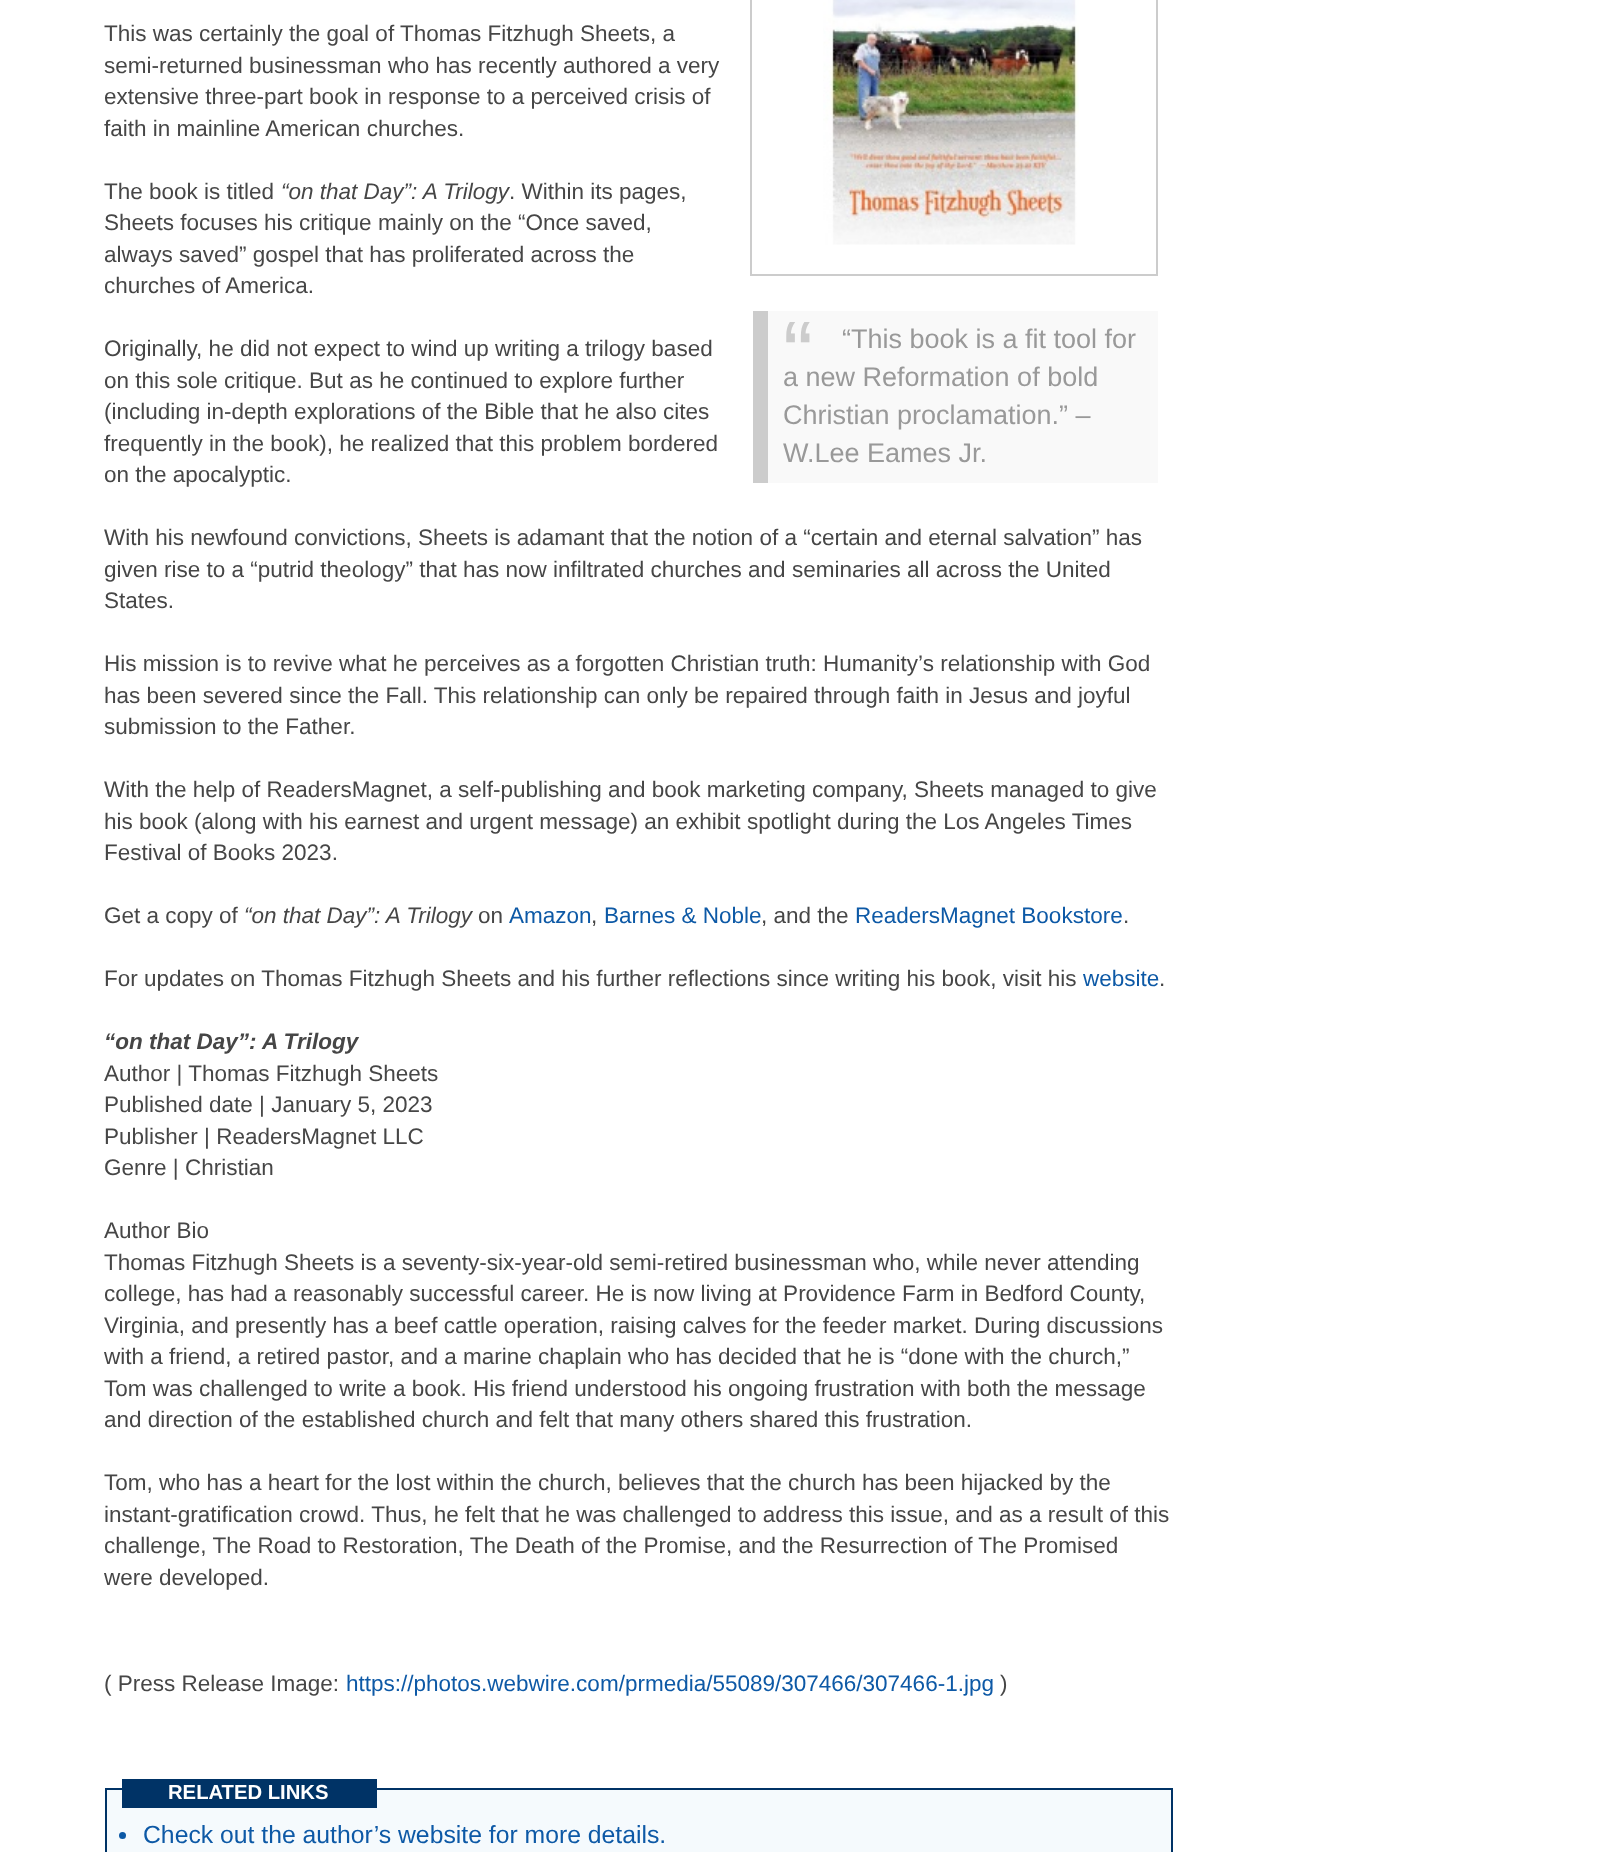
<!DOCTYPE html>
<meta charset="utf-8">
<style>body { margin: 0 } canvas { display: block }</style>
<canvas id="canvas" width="1603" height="1852"></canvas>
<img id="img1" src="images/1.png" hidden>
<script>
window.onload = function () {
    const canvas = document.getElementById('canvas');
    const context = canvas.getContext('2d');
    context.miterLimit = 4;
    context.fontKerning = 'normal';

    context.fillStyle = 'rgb(255, 255, 255)';
    context.fillRect(0, 0, 1603, 1852);
    context.strokeStyle = 'rgb(204, 204, 204)';
    context.lineWidth = 2;
    context.strokeRect(751, -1, 406, 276);
    context.drawImage(document.getElementById('img1'), 823, 0, 256, 245);
    context.fillStyle = 'rgb(249, 249, 249)';
    context.fillRect(768, 311, 390, 172);
    context.fillStyle = 'rgb(204, 204, 204)';
    context.fillRect(753, 311, 15, 172);
    context.fillStyle = 'rgb(245, 250, 253)';
    context.beginPath();
    context.rect(106, 1789, 1066, 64);
    context.fill();
    context.strokeStyle = 'rgb(0, 51, 102)';
    context.stroke();
    context.fillStyle = 'rgb(0, 51, 102)';
    context.fillRect(122, 1779, 255, 29);
    context.fillStyle = 'rgb(13, 89, 166)';
    context.beginPath();
    context.arc(122.5, 1835.5, 3.5, 0, 2 * Math.PI);
    context.fill();
    context.font = '22.5px Liberation Sans';
    context.fillStyle = 'rgb(70, 70, 70)';
    context.fillText('This was certainly the goal of Thomas Fitzhugh Sheets, a', 104, 41);
    context.fillText('semi-returned businessman who has recently authored a very', 104, 73);
    context.fillText('extensive three-part book in response to a perceived crisis of', 104, 104);
    context.fillText('faith in mainline American churches.', 104, 136);
    context.fillText('The book is titled', 104, 199);
    context.font = 'italic 22.5px Liberation Sans';
    context.fillText('“on that Day”: A Trilogy', 281, 199);
    context.font = '22.5px Liberation Sans';
    context.fillText('. Within its pages,', 509, 199);
    context.fillText('Sheets focuses his critique mainly on the “Once saved,', 104, 230);
    context.fillText('always saved” gospel that has proliferated across the', 104, 262);
    context.fillText('churches of America.', 104, 293);
    context.fillText('Originally, he did not expect to wind up writing a trilogy based', 104, 356);
    context.fillText('on this sole critique. But as he continued to explore further', 104, 388);
    context.fillText('(including in-depth explorations of the Bible that he also cites', 104, 419);
    context.fillText('frequently in the book), he realized that this problem bordered', 104, 451);
    context.fillText('on the apocalyptic.', 104, 482);
    context.fillText('With his newfound convictions, Sheets is adamant that the notion of a “certain and eternal salvation” has', 104, 545);
    context.fillText('given rise to a “putrid theology” that has now infiltrated churches and seminaries all across the United', 104, 577);
    context.fillText('States.', 104, 608);
    context.fillText('His mission is to revive what he perceives as a forgotten Christian truth: Humanity’s relationship with God', 104, 671);
    context.fillText('has been severed since the Fall. This relationship can only be repaired through faith in Jesus and joyful', 104, 703);
    context.fillText('submission to the Father.', 104, 734);
    context.fillText('With the help of ReadersMagnet, a self-publishing and book marketing company, Sheets managed to give', 104, 797);
    context.fillText('his book (along with his earnest and urgent message) an exhibit spotlight during the Los Angeles Times', 104, 829);
    context.fillText('Festival of Books 2023.', 104, 860);
    context.fillText('Get a copy of', 104, 923);
    context.font = 'italic 22.5px Liberation Sans';
    context.fillText('“on that Day”: A Trilogy', 244, 923);
    context.font = '22.5px Liberation Sans';
    context.fillText('on', 478, 923);
    context.fillStyle = 'rgb(13, 89, 166)';
    context.fillText('Amazon', 509, 923);
    context.fillStyle = 'rgb(70, 70, 70)';
    context.fillText(',', 591, 923);
    context.fillStyle = 'rgb(13, 89, 166)';
    context.fillText('Barnes & Noble', 604, 923);
    context.fillStyle = 'rgb(70, 70, 70)';
    context.fillText(', and the', 761, 923);
    context.fillStyle = 'rgb(13, 89, 166)';
    context.fillText('ReadersMagnet Bookstore', 855, 923);
    context.fillStyle = 'rgb(70, 70, 70)';
    context.fillText('.', 1123, 923);
    context.fillText('For updates on Thomas Fitzhugh Sheets and his further reflections since writing his book, visit his', 104, 986);
    context.fillStyle = 'rgb(13, 89, 166)';
    context.fillText('website', 1083, 986);
    context.fillStyle = 'rgb(70, 70, 70)';
    context.fillText('.', 1159, 986);
    context.font = 'italic bold 22.5px Liberation Sans';
    context.fillText('“on that Day”: A Trilogy', 104, 1049);
    context.font = '22.5px Liberation Sans';
    context.fillText('Author | Thomas Fitzhugh Sheets', 104, 1081);
    context.fillText('Published date | January 5, 2023', 104, 1112);
    context.fillText('Publisher | ReadersMagnet LLC', 104, 1144);
    context.fillText('Genre | Christian', 104, 1175);
    context.fillText('Author Bio', 104, 1238);
    context.fillText('Thomas Fitzhugh Sheets is a seventy-six-year-old semi-retired businessman who, while never attending', 104, 1270);
    context.fillText('college, has had a reasonably successful career. He is now living at Providence Farm in Bedford County,', 104, 1301);
    context.fillText('Virginia, and presently has a beef cattle operation, raising calves for the feeder market. During discussions', 104, 1333);
    context.fillText('with a friend, a retired pastor, and a marine chaplain who has decided that he is “done with the church,”', 104, 1364);
    context.fillText('Tom was challenged to write a book. His friend understood his ongoing frustration with both the message', 104, 1396);
    context.fillText('and direction of the established church and felt that many others shared this frustration.', 104, 1427);
    context.fillText('Tom, who has a heart for the lost within the church, believes that the church has been hijacked by the', 104, 1490);
    context.fillText('instant-gratification crowd. Thus, he felt that he was challenged to address this issue, and as a result of this', 104, 1522);
    context.fillText('challenge, The Road to Restoration, The Death of the Promise, and the Resurrection of The Promised', 104, 1553);
    context.fillText('were developed.', 104, 1585);
    context.font = '90px Liberation Sans';
    context.fillStyle = 'rgb(204, 204, 204)';
    context.fillText('“', 783, 384);
    context.font = '27px Liberation Sans';
    context.fillStyle = 'rgb(153, 153, 153)';
    context.fillText('“This book is a fit tool for', 842, 348);
    context.fillText('a new Reformation of bold', 783, 386);
    context.fillText('Christian proclamation.” –', 783, 424);
    context.fillText('W.Lee Eames Jr.', 783, 462);
    context.font = '22.5px Liberation Sans';
    context.fillStyle = 'rgb(70, 70, 70)';
    context.fillText('( Press Release Image:', 104, 1691);
    context.fillStyle = 'rgb(13, 89, 166)';
    context.fillText('https://photos.webwire.com/prmedia/55089/307466/307466-1.jpg', 346, 1691);
    context.fillStyle = 'rgb(70, 70, 70)';
    context.fillText(')', 1000, 1691);
    context.font = 'bold 20.25px Liberation Sans';
    context.fillStyle = 'rgb(255, 255, 255)';
    context.fillText('RELATED LINKS', 168, 1799);
    context.font = '24.75px Liberation Sans';
    context.fillStyle = 'rgb(13, 89, 166)';
    context.fillText('Check out the author’s website for more details.', 143, 1843);
};
</script>
